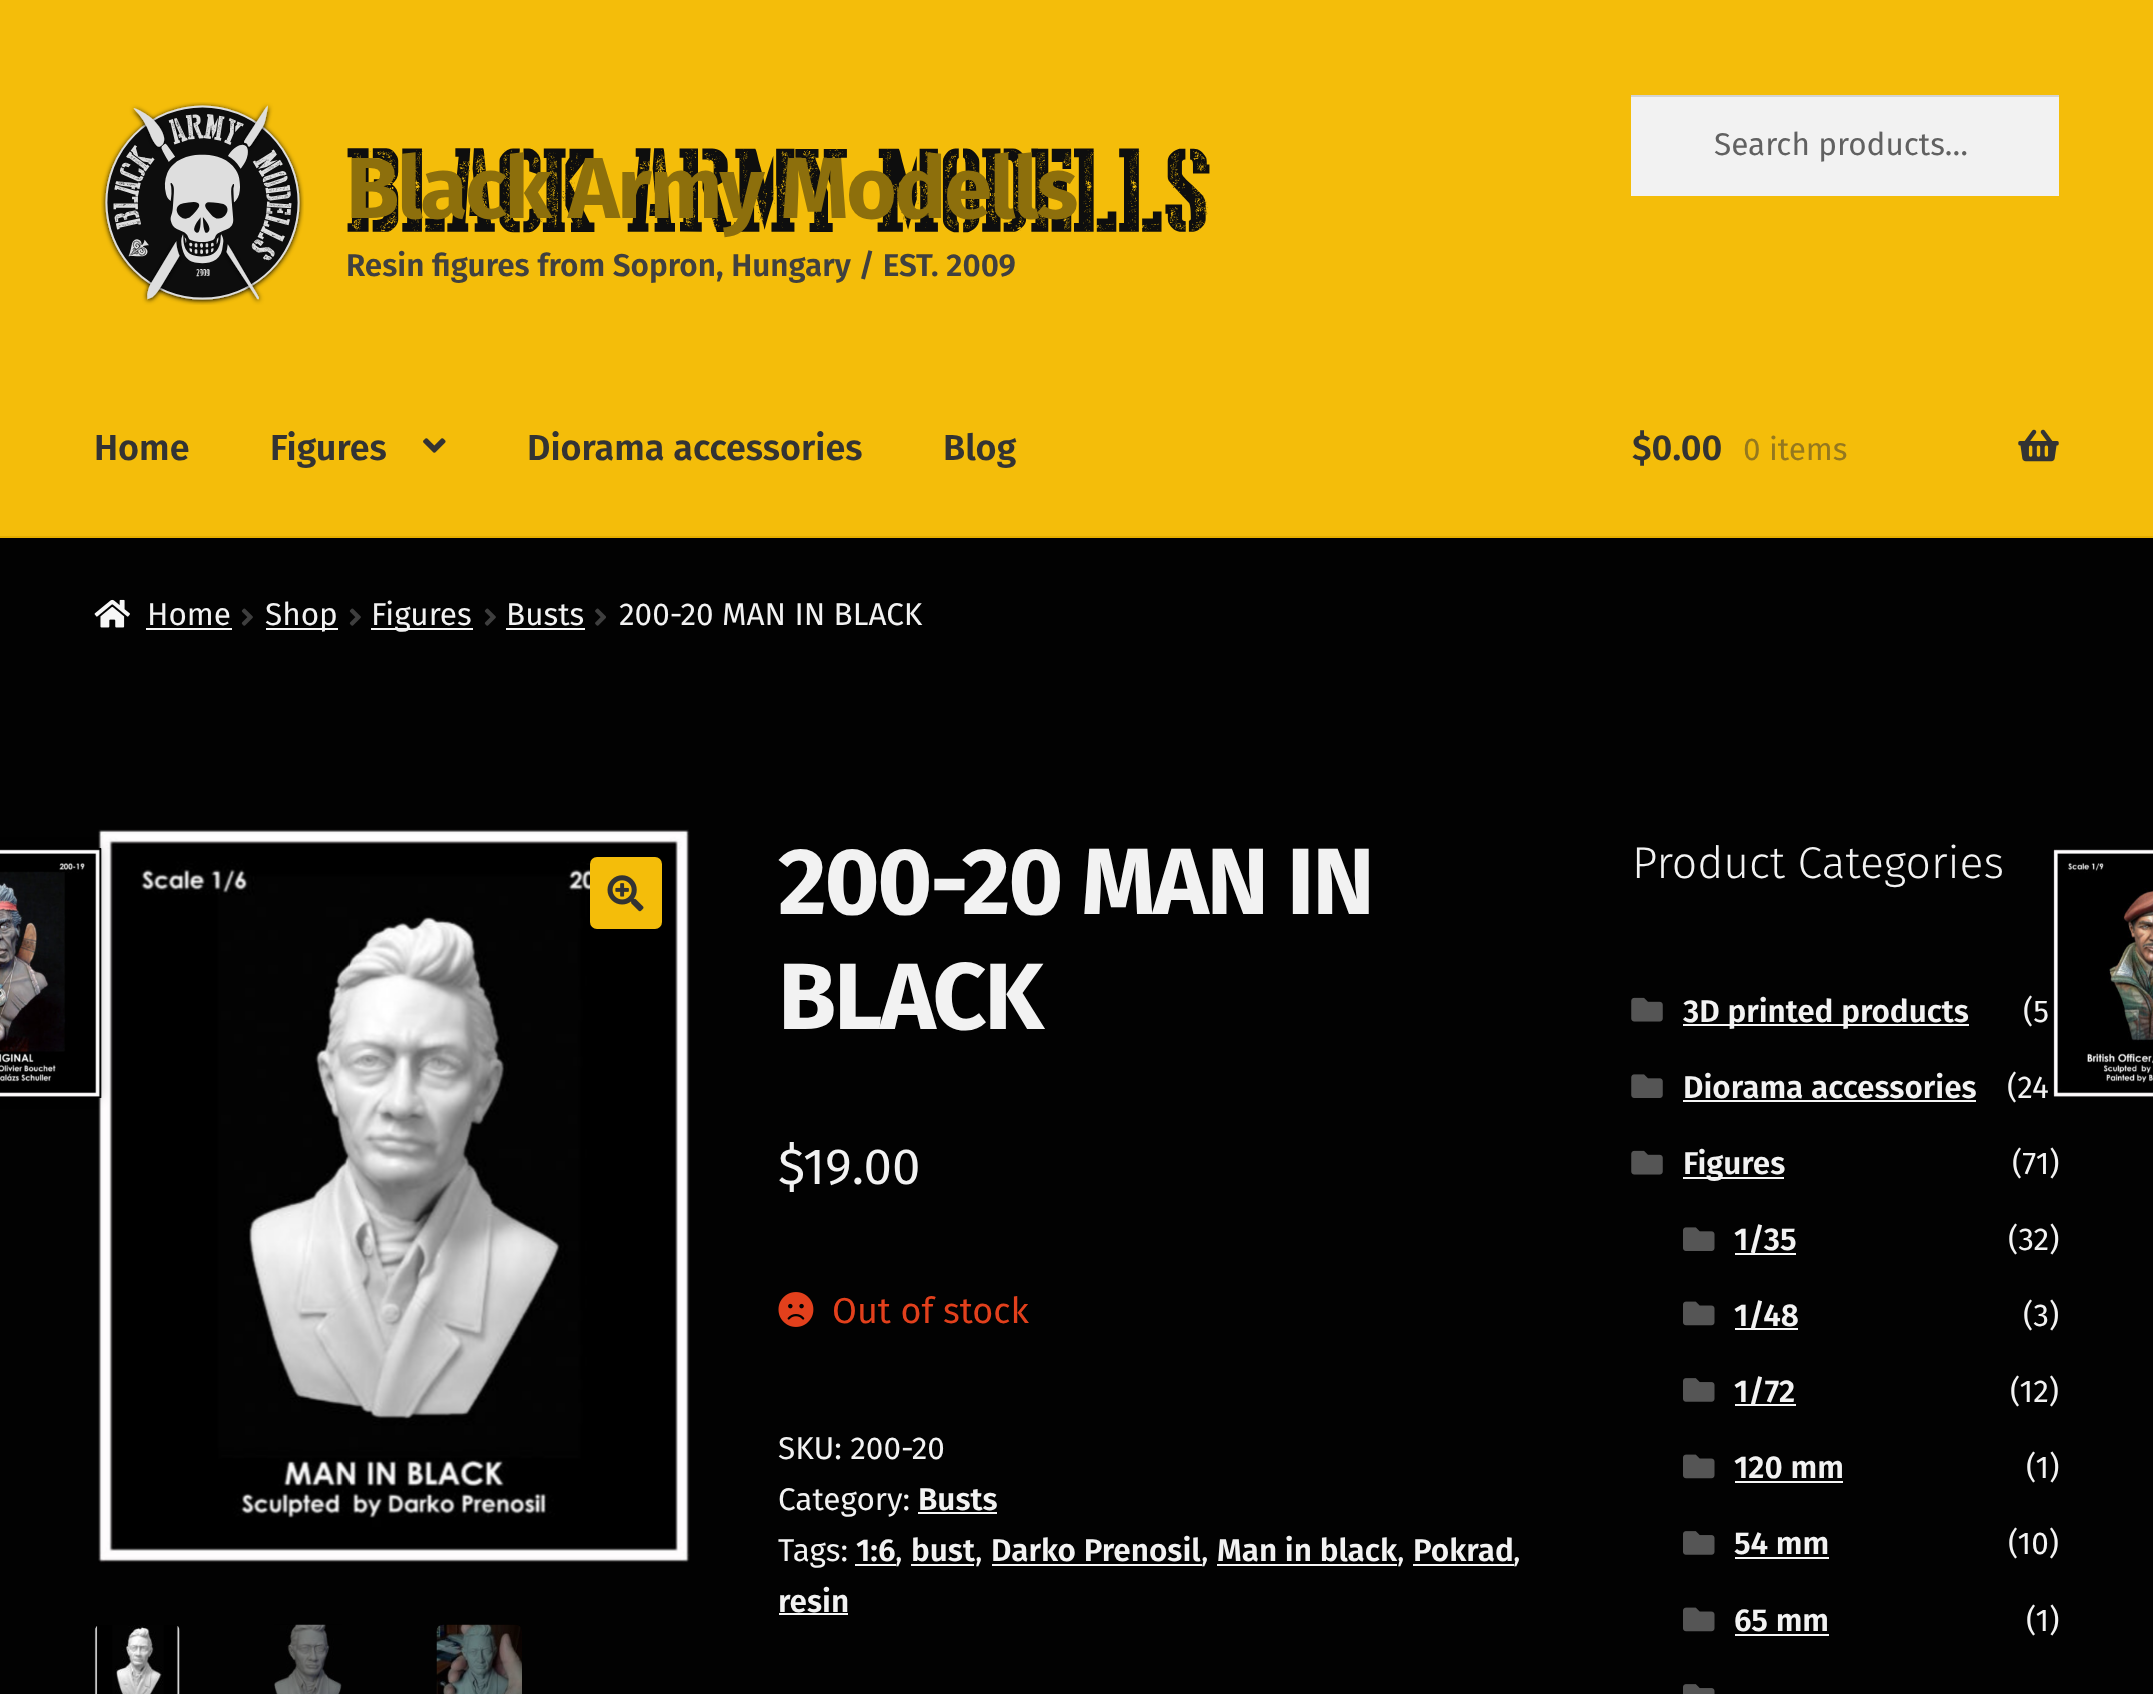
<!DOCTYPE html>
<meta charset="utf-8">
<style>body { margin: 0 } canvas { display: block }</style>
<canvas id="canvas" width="2153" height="1694"></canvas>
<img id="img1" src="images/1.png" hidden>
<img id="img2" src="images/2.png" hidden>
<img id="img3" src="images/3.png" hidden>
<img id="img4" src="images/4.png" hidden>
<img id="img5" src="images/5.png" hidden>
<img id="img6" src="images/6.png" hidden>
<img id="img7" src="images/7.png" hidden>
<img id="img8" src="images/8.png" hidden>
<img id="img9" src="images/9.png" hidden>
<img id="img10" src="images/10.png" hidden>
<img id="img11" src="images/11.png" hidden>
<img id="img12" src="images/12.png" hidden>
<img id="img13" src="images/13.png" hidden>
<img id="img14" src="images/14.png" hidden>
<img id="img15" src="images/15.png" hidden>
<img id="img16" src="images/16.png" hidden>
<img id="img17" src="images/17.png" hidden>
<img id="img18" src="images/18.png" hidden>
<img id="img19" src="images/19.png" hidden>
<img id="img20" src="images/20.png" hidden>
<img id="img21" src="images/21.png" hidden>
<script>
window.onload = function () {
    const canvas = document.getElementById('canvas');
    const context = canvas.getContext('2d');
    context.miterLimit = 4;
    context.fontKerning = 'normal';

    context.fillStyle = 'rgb(2, 2, 2)';
    context.fillRect(0, 0, 2153, 1694);
    context.fillStyle = 'rgb(244, 189, 10)';
    context.fillRect(0, 0, 2153, 536);
    context.fillStyle = 'rgb(229, 174, 0)';
    context.fillRect(0, 536, 2153, 2);
    context.fillStyle = 'rgb(242, 242, 242)';
    context.fillRect(1631, 97, 428, 99);
    context.fillStyle = 'rgb(212, 212, 212)';
    context.fillRect(1631, 95, 428, 2);
    context.drawImage(document.getElementById('img1'), 101, 102, 203, 203);
    context.drawImage(document.getElementById('img2'), 347, 148, 863, 85);
    context.drawImage(document.getElementById('img3'), 423, 438, 23, 15);
    context.drawImage(document.getElementById('img4'), 2018, 429, 41, 33);
    context.drawImage(document.getElementById('img5'), 94, 599, 36, 29);
    context.fillStyle = 'rgb(247, 247, 247)';
    context.fillRect(146, 628, 86, 2);
    context.drawImage(document.getElementById('img6'), 241, 608, 12, 18);
    context.fillRect(266, 628, 72, 2);
    context.drawImage(document.getElementById('img6'), 349, 608, 12, 18);
    context.fillRect(371, 628, 102, 2);
    context.drawImage(document.getElementById('img6'), 484, 608, 12, 18);
    context.fillRect(506, 628, 79, 2);
    context.drawImage(document.getElementById('img7'), 595, 608, 11, 18);
    context.drawImage(document.getElementById('img8'), 98, 829, 592, 734);
    context.fillStyle = 'rgb(244, 189, 10)';
    context.beginPath();
    context.roundRect(590, 857, 72, 72, 7);
    context.fill();
    context.drawImage(document.getElementById('img9'), 607, 875, 37, 37);
    context.drawImage(document.getElementById('img10'), 94, 1625, 86, 69);
    context.drawImage(document.getElementById('img11'), 274, 1624, 68, 70);
    context.drawImage(document.getElementById('img12'), 436, 1624, 86, 70);
    context.fillStyle = 'rgba(0, 0, 0, 0.2)';
    context.filter = 'blur(5.5px)';
    context.beginPath();
    context.rect(-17, 848, 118, 250);
    context.fill();
    context.filter = 'none';
    context.fillStyle = 'rgb(2, 2, 2)';
    context.fillRect(98, 848, 3, 250);
    context.drawImage(document.getElementById('img13'), 0, 848, 102, 250);
    context.drawImage(document.getElementById('img14'), 2053, 849, 100, 248);
    context.drawImage(document.getElementById('img15'), 778, 1292, 36, 35);
    context.fillStyle = 'rgb(247, 247, 247)';
    context.fillRect(918, 1512, 79, 2);
    context.fillRect(855, 1564, 41, 2);
    context.fillRect(911, 1564, 63, 2);
    context.fillRect(992, 1564, 210, 2);
    context.fillRect(1217, 1564, 180, 2);
    context.fillRect(1413, 1564, 101, 2);
    context.fillRect(779, 1613, 69, 2);
    context.drawImage(document.getElementById('img16'), 1631, 997, 32, 25);
    context.fillRect(1683, 1024, 286, 2);
    context.drawImage(document.getElementById('img17'), 1631, 1074, 32, 24);
    context.fillRect(1683, 1100, 293, 2);
    context.drawImage(document.getElementById('img16'), 1631, 1150, 32, 25);
    context.fillRect(1683, 1177, 101, 2);
    context.drawImage(document.getElementById('img18'), 1683, 1227, 32, 24);
    context.fillRect(1735, 1253, 61, 2);
    context.drawImage(document.getElementById('img19'), 1683, 1301, 32, 25);
    context.fillRect(1735, 1328, 63, 2);
    context.drawImage(document.getElementById('img20'), 1683, 1378, 32, 24);
    context.fillRect(1735, 1404, 61, 2);
    context.drawImage(document.getElementById('img19'), 1683, 1454, 32, 25);
    context.fillRect(1735, 1481, 108, 2);
    context.drawImage(document.getElementById('img20'), 1683, 1531, 32, 24);
    context.fillRect(1735, 1557, 94, 2);
    context.drawImage(document.getElementById('img19'), 1683, 1607, 32, 25);
    context.fillRect(1735, 1634, 94, 2);
    context.drawImage(document.getElementById('img21'), 1683, 1684, 32, 10);
    context.font = '31.5px Fira Sans';
    context.fillStyle = 'rgb(97, 97, 97)';
    context.fillText('Search products…', 1714, 155);
    context.letterSpacing = '-2.25px';
    context.font = 'bold 86.5px Fira Sans';
    context.fillStyle = 'rgb(141, 111, 12)';
    context.fillText('Black Army Modells', 346, 218);
    context.letterSpacing = '0px';
    context.font = '600 31.5px Fira Sans';
    context.fillStyle = 'rgb(64, 64, 64)';
    context.fillText('Resin figures from Sopron, Hungary / EST. 2009', 346, 276);
    context.font = '600 36px Fira Sans';
    context.fillStyle = 'rgb(51, 51, 51)';
    context.fillText('Home', 94, 460);
    context.fillText('Figures', 270, 460);
    context.fillText('Diorama accessories', 527, 460);
    context.fillText('Blog', 943, 460);
    context.fillText('$0.00', 1632, 460);
    context.font = '31.5px Fira Sans';
    context.fillStyle = 'rgb(148, 120, 31)';
    context.fillText('0 items', 1743, 460);
    context.fillStyle = 'rgb(242, 242, 242)';
    context.fillText('Home', 147, 625);
    context.fillText('Shop', 265, 625);
    context.fillText('Figures', 371, 625);
    context.fillText('Busts', 506, 625);
    context.fillText('200-20 MAN IN BLACK', 619, 625);
    context.letterSpacing = '-2.25px';
    context.font = 'bold 94.25px Fira Sans';
    context.fillText('200-20 MAN IN', 778, 914);
    context.fillText('BLACK', 778, 1029);
    context.letterSpacing = '0px';
    context.font = '51px Fira Sans';
    context.fillText('$', 778, 1184);
    context.fillText('19.00', 803, 1184);
    context.font = '36px Fira Sans';
    context.fillStyle = 'rgb(226, 64, 28)';
    context.fillText('Out of stock', 832, 1323);
    context.font = '31.5px Fira Sans';
    context.fillStyle = 'rgb(242, 242, 242)';
    context.fillText('SKU: 200-20', 778, 1459);
    context.fillText('Category:', 778, 1510);
    context.font = '600 31.5px Fira Sans';
    context.fillText('Busts', 918, 1510);
    context.font = '31.5px Fira Sans';
    context.fillText('Tags:', 778, 1561);
    context.font = '600 31.5px Fira Sans';
    context.fillText('1:6', 856, 1561);
    context.font = '31.5px Fira Sans';
    context.fillText(',', 895, 1561);
    context.font = '600 31.5px Fira Sans';
    context.fillText('bust', 911, 1561);
    context.font = '31.5px Fira Sans';
    context.fillText(',', 975, 1561);
    context.font = '600 31.5px Fira Sans';
    context.fillText('Darko Prenosil', 991, 1561);
    context.font = '31.5px Fira Sans';
    context.fillText(',', 1201, 1561);
    context.font = '600 31.5px Fira Sans';
    context.fillText('Man in black', 1217, 1561);
    context.font = '31.5px Fira Sans';
    context.fillText(',', 1397, 1561);
    context.font = '600 31.5px Fira Sans';
    context.fillText('Pokrad', 1413, 1561);
    context.font = '31.5px Fira Sans';
    context.fillText(',', 1513, 1561);
    context.font = '600 31.5px Fira Sans';
    context.fillText('resin', 778, 1612);
    context.font = '300 44.5px Fira Sans';
    context.fillText('Product Categories', 1632, 878);
    context.font = '600 31.5px Fira Sans';
    context.fillText('3D printed products', 1683, 1022);
    context.font = '31.5px Fira Sans';
    context.fillText('(5', 2023, 1022);
    context.font = '600 31.5px Fira Sans';
    context.fillText('Diorama accessories', 1683, 1098);
    context.font = '31.5px Fira Sans';
    context.fillText('(24', 2007, 1098);
    context.font = '600 31.5px Fira Sans';
    context.fillText('Figures', 1683, 1174);
    context.font = '31.5px Fira Sans';
    context.fillText('(71)', 2012, 1174);
    context.font = '600 31.5px Fira Sans';
    context.fillText('1/35', 1734, 1250);
    context.font = '31.5px Fira Sans';
    context.fillText('(32)', 2008, 1250);
    context.font = '600 31.5px Fira Sans';
    context.fillText('1/48', 1734, 1326);
    context.font = '31.5px Fira Sans';
    context.fillText('(3)', 2023, 1326);
    context.font = '600 31.5px Fira Sans';
    context.fillText('1/72', 1734, 1402);
    context.font = '31.5px Fira Sans';
    context.fillText('(12)', 2010, 1402);
    context.font = '600 31.5px Fira Sans';
    context.fillText('120 mm', 1734, 1478);
    context.font = '31.5px Fira Sans';
    context.fillText('(1)', 2026, 1478);
    context.font = '600 31.5px Fira Sans';
    context.fillText('54 mm', 1734, 1554);
    context.font = '31.5px Fira Sans';
    context.fillText('(10)', 2008, 1554);
    context.font = '600 31.5px Fira Sans';
    context.fillText('65 mm', 1734, 1631);
    context.font = '31.5px Fira Sans';
    context.fillText('(1)', 2026, 1631);
};
</script>
